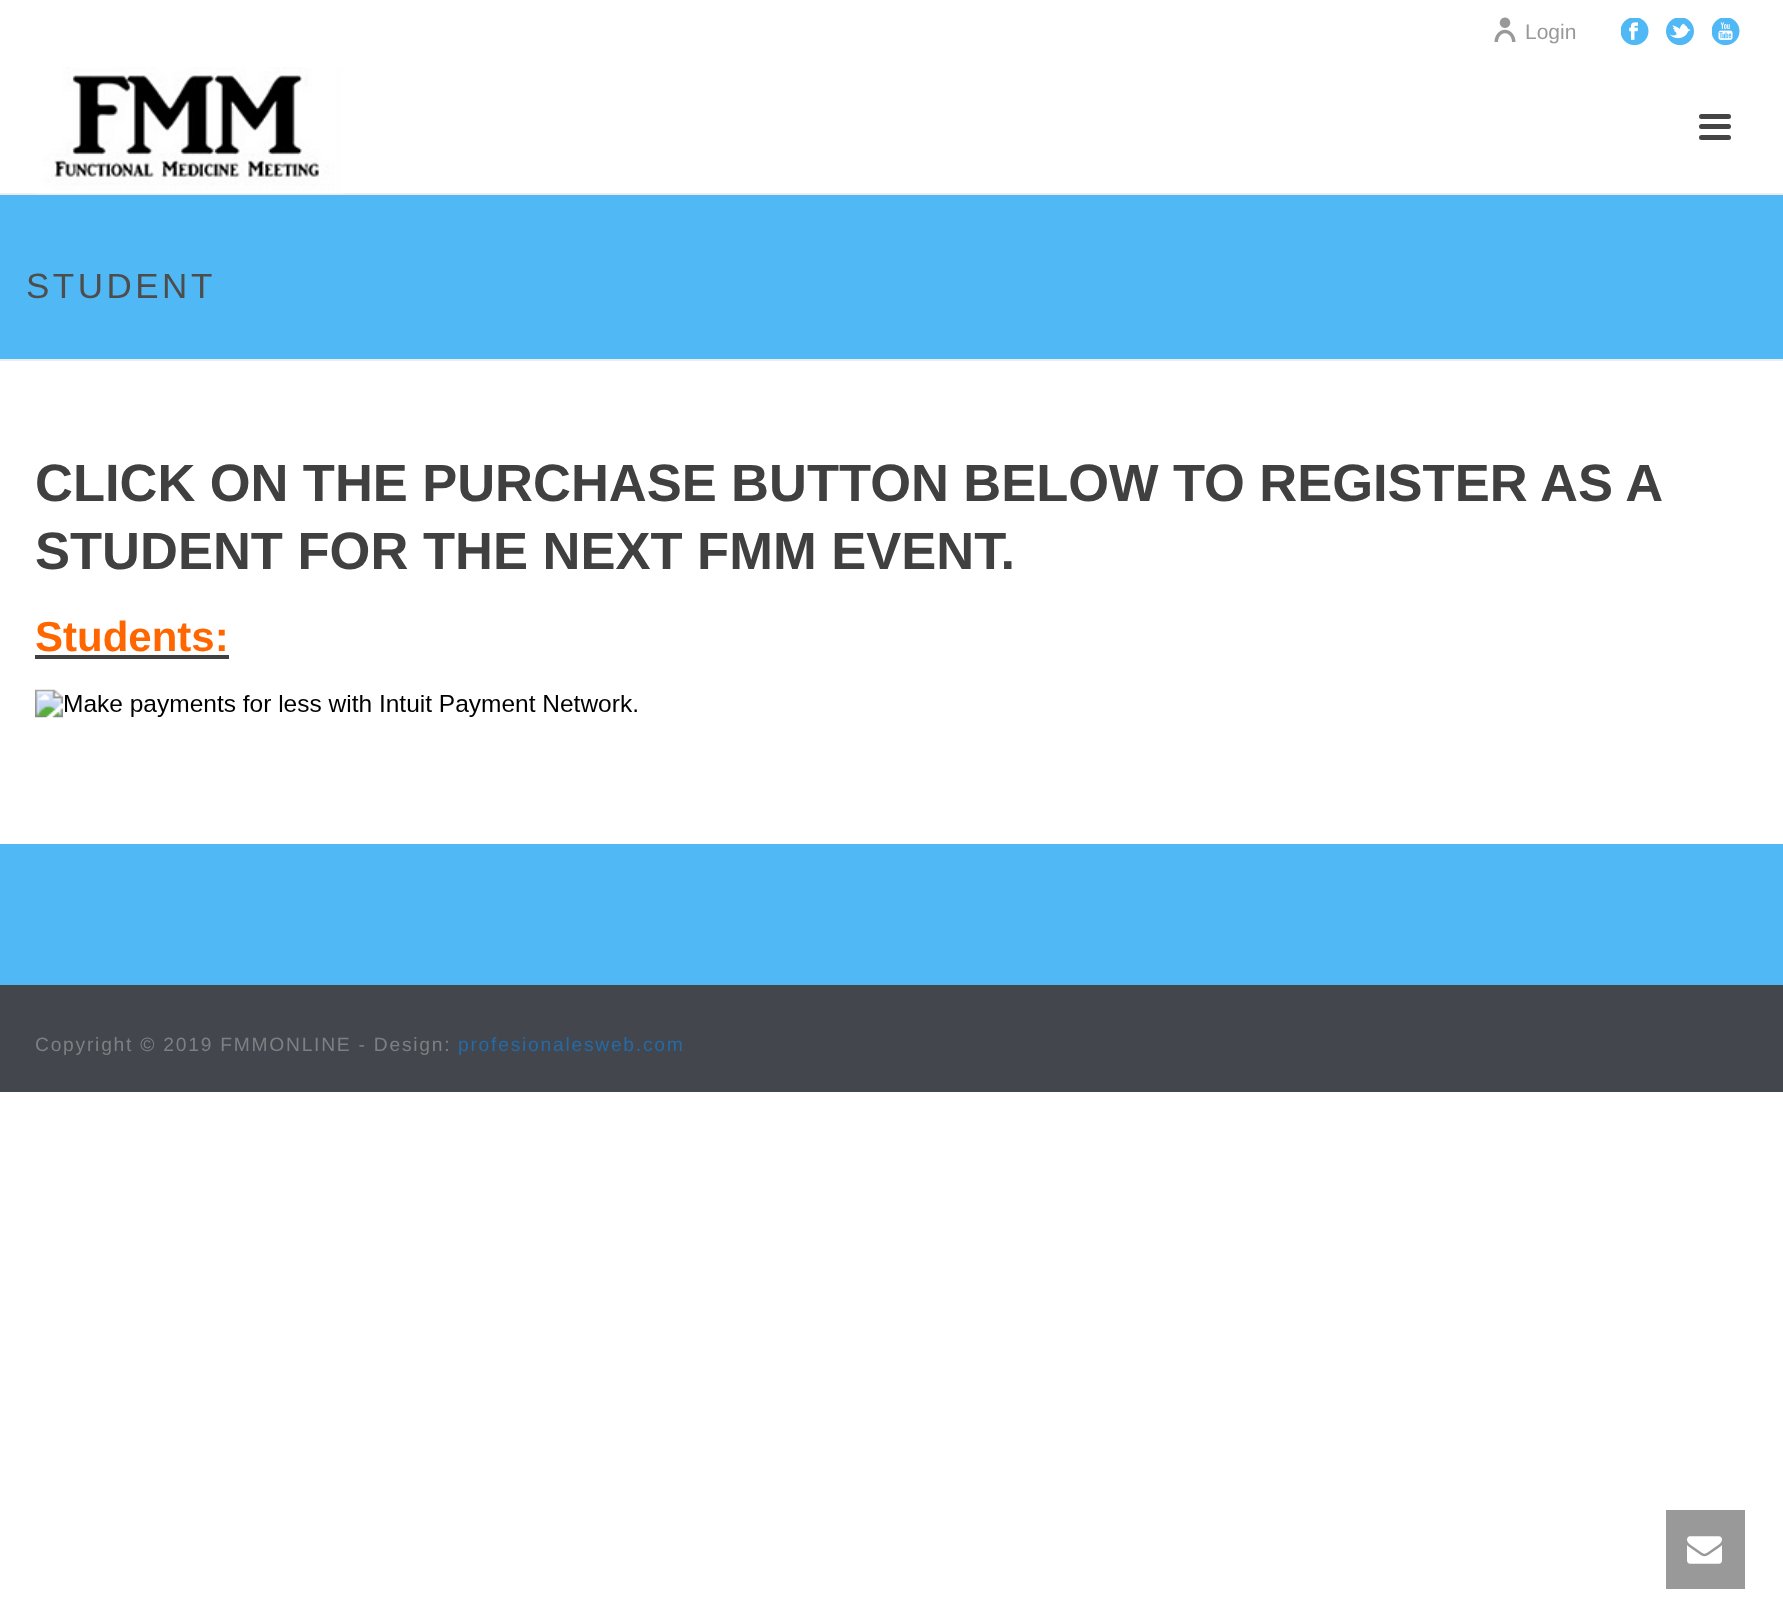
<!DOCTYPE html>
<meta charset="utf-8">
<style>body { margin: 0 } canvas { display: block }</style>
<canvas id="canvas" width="1783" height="1615"></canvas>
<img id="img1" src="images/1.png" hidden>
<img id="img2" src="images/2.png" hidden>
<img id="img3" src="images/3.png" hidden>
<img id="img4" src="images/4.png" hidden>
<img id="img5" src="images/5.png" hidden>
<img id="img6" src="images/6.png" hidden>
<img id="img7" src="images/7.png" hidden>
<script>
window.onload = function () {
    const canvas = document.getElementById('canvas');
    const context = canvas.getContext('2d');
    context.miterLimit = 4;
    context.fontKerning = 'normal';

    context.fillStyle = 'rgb(255, 255, 255)';
    context.fillRect(0, 0, 1783, 1615);
    context.fillStyle = 'rgb(237, 237, 237)';
    context.fillRect(0, 359, 1783, 2);
    context.drawImage(document.getElementById('img1'), 1494, 17, 22, 25);
    context.drawImage(document.getElementById('img2'), 1621, 18, 28, 28);
    context.drawImage(document.getElementById('img3'), 1666, 18, 28, 28);
    context.drawImage(document.getElementById('img4'), 1712, 18, 28, 28);
    context.fillRect(0, 193, 1783, 2);
    context.drawImage(document.getElementById('img5'), 35, 67, 308, 127);
    context.fillStyle = 'rgb(68, 68, 68)';
    context.beginPath();
    context.roundRect(1699, 114, 32, 5, 2.5);
    context.fill();
    context.beginPath();
    context.roundRect(1699, 124, 32, 5, 2.5);
    context.fill();
    context.beginPath();
    context.roundRect(1699, 135, 32, 5, 2.5);
    context.fill();
    context.fillStyle = 'rgb(80, 184, 244)';
    context.fillRect(0, 195, 1783, 164);
    context.fillStyle = 'rgb(64, 64, 64)';
    context.fillRect(35, 655, 194, 4);
    context.drawImage(document.getElementById('img6'), 35, 689, 602, 29);
    context.fillStyle = 'rgb(80, 184, 244)';
    context.fillRect(0, 844, 1783, 141);
    context.fillStyle = 'rgb(67, 71, 77)';
    context.fillRect(0, 985, 1783, 107);
    context.fillStyle = 'rgb(153, 153, 153)';
    context.fillRect(1666, 1510, 79, 79);
    context.drawImage(document.getElementById('img7'), 1687, 1536, 35, 28);
    context.font = '21px Liberation Sans';
    context.fillText('Login', 1525, 39);
    context.letterSpacing = '3.5px';
    context.font = '35px Liberation Sans';
    context.fillStyle = 'rgb(77, 77, 77)';
    context.fillText('STUDENT', 26, 298);
    context.letterSpacing = '0px';
    context.wordSpacing = '-0.25px';
    context.font = 'bold 52.5px Liberation Sans';
    context.fillStyle = 'rgb(64, 64, 64)';
    context.fillText('CLICK ON THE PURCHASE BUTTON BELOW TO REGISTER AS A', 35, 501);
    context.wordSpacing = '0px';
    context.fillText('STUDENT FOR THE NEXT FMM EVENT.', 35, 569);
    context.font = 'bold 42px Liberation Sans';
    context.fillStyle = 'rgb(255, 102, 0)';
    context.fillText('Students:', 35, 651);
    context.letterSpacing = '1.75px';
    context.font = '19.25px Liberation Sans';
    context.fillStyle = 'rgb(125, 128, 131)';
    context.fillText('Copyright © 2019 FMMONLINE - Design:', 35, 1051);
    context.fillStyle = 'rgb(37, 106, 167)';
    context.fillText('profesionalesweb.com', 458, 1051);
};
</script>
